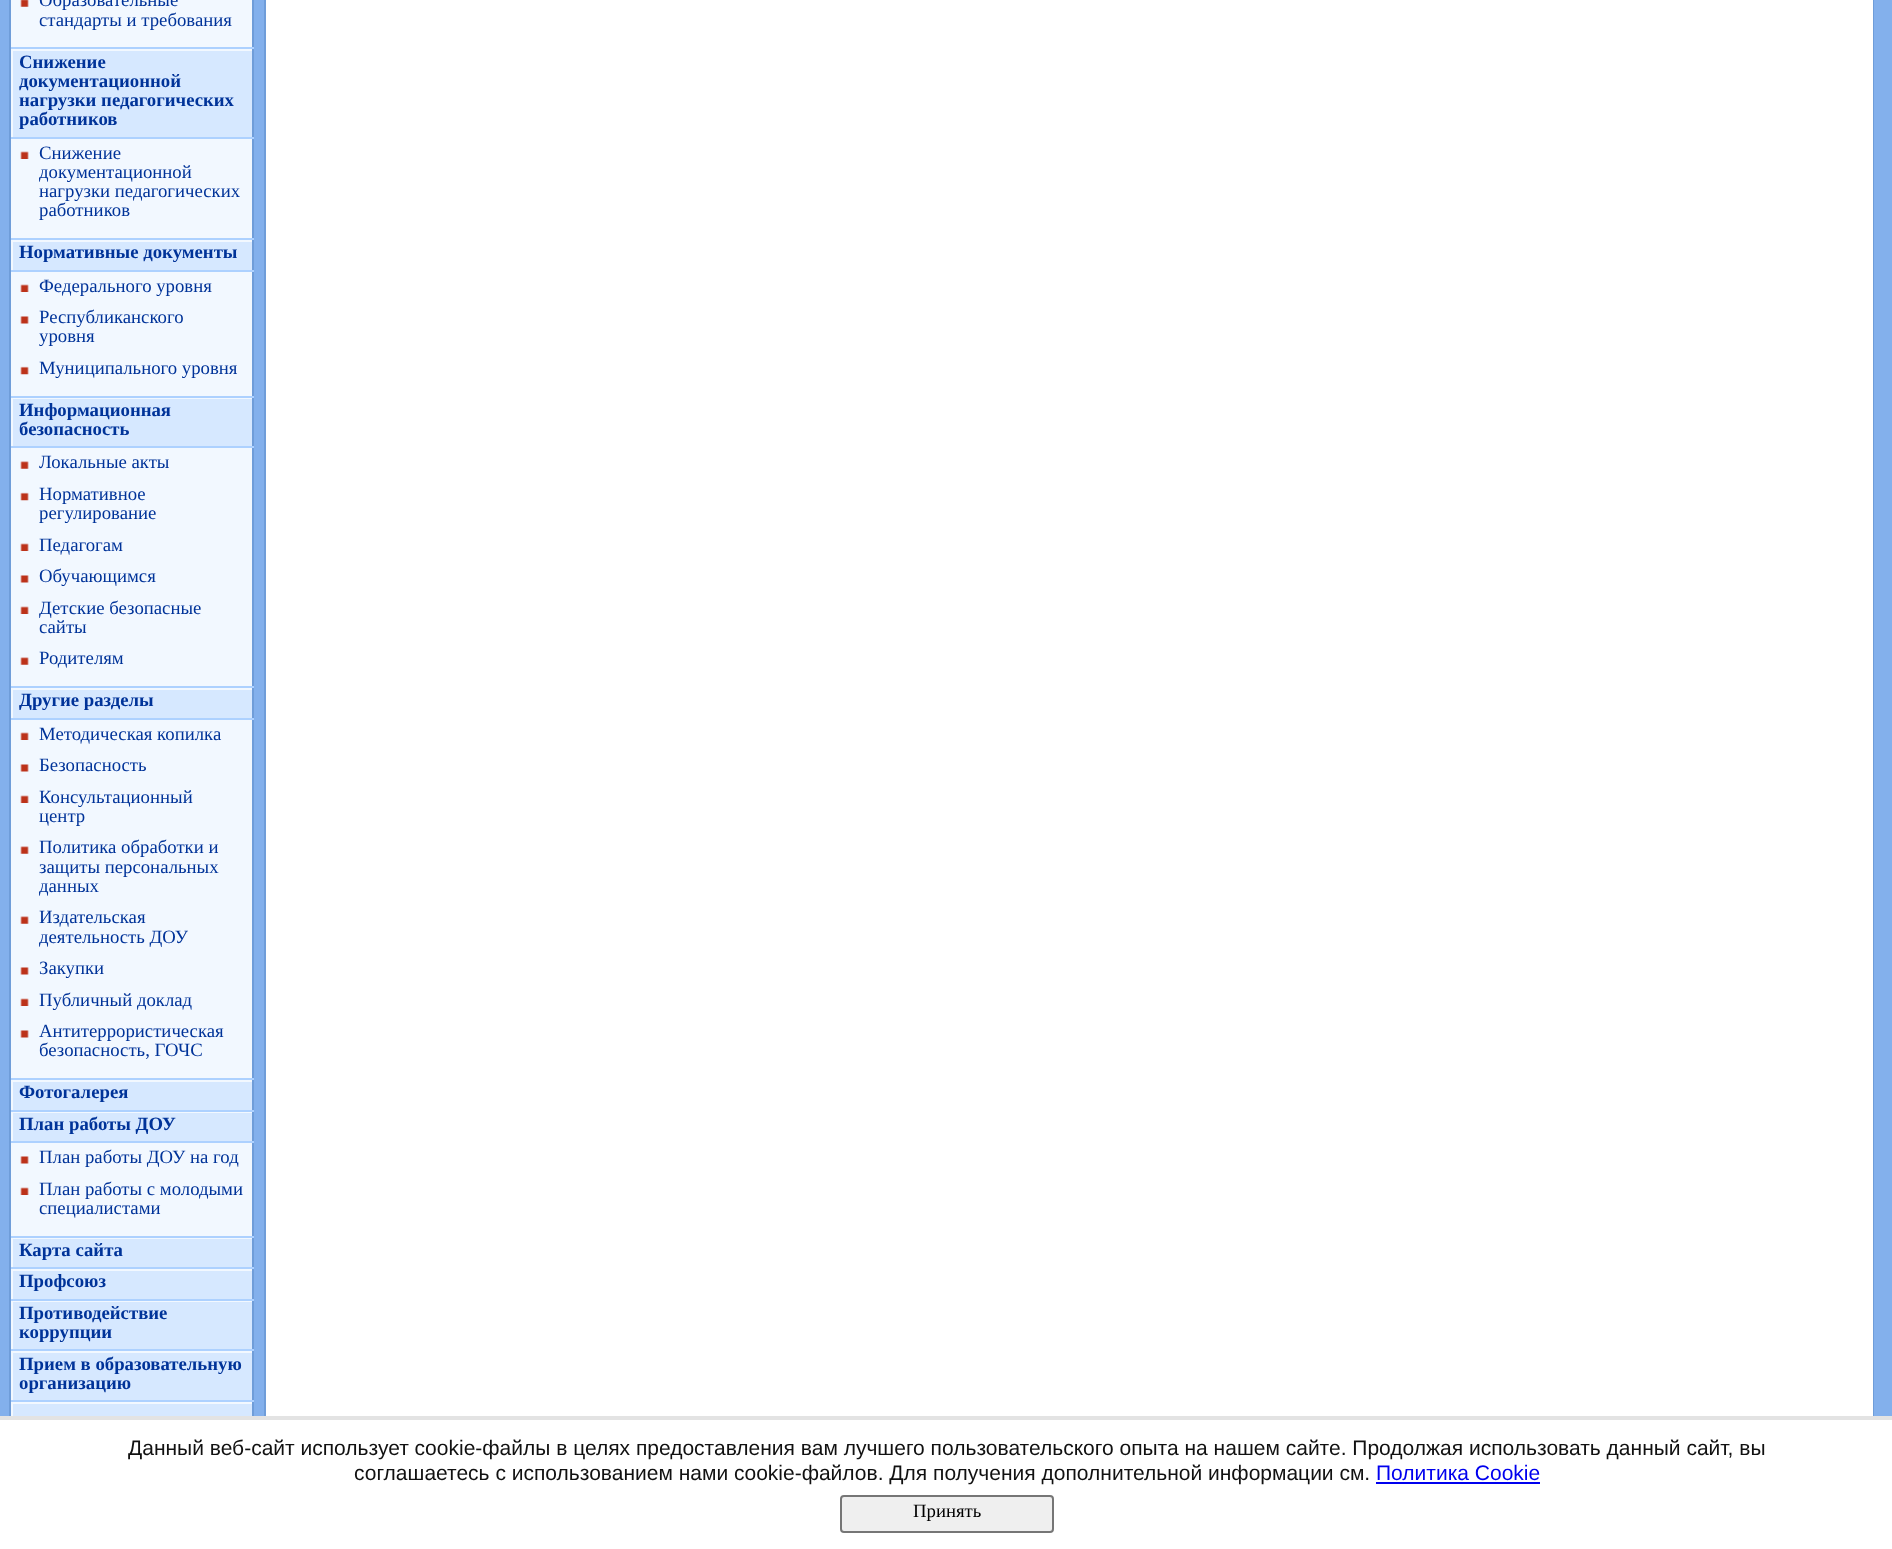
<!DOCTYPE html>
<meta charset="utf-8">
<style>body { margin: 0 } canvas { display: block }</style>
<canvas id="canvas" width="1892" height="1549"></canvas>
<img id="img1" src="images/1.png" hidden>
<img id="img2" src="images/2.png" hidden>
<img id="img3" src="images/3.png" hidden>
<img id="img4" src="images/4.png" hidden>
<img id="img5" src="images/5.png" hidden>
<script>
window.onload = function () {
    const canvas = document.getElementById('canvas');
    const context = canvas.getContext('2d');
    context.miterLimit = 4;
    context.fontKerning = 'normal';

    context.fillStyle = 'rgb(255, 255, 255)';
    context.fillRect(0, 0, 1892, 1549);
    context.fillStyle = 'rgb(131, 176, 236)';
    context.fillRect(0, 0, 9, 1416);
    context.fillStyle = 'rgb(242, 248, 255)';
    context.fillRect(11, 0, 241, 1236);
    context.strokeStyle = 'rgb(111, 157, 217)';
    context.lineWidth = 2;
    context.strokeRect(10, -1, 243, 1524);
    context.drawImage(document.getElementById('img1'), 20, 0, 9, 7);
    context.fillStyle = 'rgb(173, 209, 255)';
    context.fillRect(11, 47, 243, 2);
    context.fillStyle = 'rgb(214, 232, 255)';
    context.fillRect(13, 51, 239, 86);
    context.fillStyle = 'rgb(173, 209, 255)';
    context.fillRect(11, 137, 243, 2);
    context.drawImage(document.getElementById('img2'), 20, 151, 9, 8);
    context.fillRect(11, 238, 243, 2);
    context.fillStyle = 'rgb(214, 232, 255)';
    context.fillRect(13, 242, 239, 28);
    context.fillStyle = 'rgb(173, 209, 255)';
    context.fillRect(11, 270, 243, 2);
    context.drawImage(document.getElementById('img2'), 20, 284, 9, 8);
    context.drawImage(document.getElementById('img3'), 20, 316, 9, 8);
    context.drawImage(document.getElementById('img4'), 20, 366, 9, 9);
    context.fillRect(11, 396, 243, 2);
    context.fillStyle = 'rgb(214, 232, 255)';
    context.fillRect(13, 399, 239, 47);
    context.fillStyle = 'rgb(173, 209, 255)';
    context.fillRect(11, 446, 243, 2);
    context.drawImage(document.getElementById('img5'), 20, 461, 9, 8);
    context.drawImage(document.getElementById('img4'), 20, 492, 9, 9);
    context.drawImage(document.getElementById('img2'), 20, 543, 9, 8);
    context.drawImage(document.getElementById('img3'), 20, 575, 9, 8);
    context.drawImage(document.getElementById('img2'), 20, 606, 9, 8);
    context.drawImage(document.getElementById('img5'), 20, 657, 9, 8);
    context.fillRect(11, 686, 243, 2);
    context.fillStyle = 'rgb(214, 232, 255)';
    context.fillRect(13, 690, 239, 28);
    context.fillStyle = 'rgb(173, 209, 255)';
    context.fillRect(11, 718, 243, 2);
    context.drawImage(document.getElementById('img2'), 20, 732, 9, 8);
    context.drawImage(document.getElementById('img3'), 20, 764, 9, 8);
    context.drawImage(document.getElementById('img2'), 20, 795, 9, 8);
    context.drawImage(document.getElementById('img5'), 20, 846, 9, 8);
    context.drawImage(document.getElementById('img5'), 20, 916, 9, 8);
    context.drawImage(document.getElementById('img3'), 20, 967, 9, 8);
    context.drawImage(document.getElementById('img2'), 20, 998, 9, 8);
    context.drawImage(document.getElementById('img3'), 20, 1030, 9, 8);
    context.fillRect(11, 1078, 243, 2);
    context.fillStyle = 'rgb(214, 232, 255)';
    context.fillRect(13, 1082, 239, 28);
    context.fillStyle = 'rgb(173, 209, 255)';
    context.fillRect(11, 1110, 243, 2);
    context.fillStyle = 'rgb(214, 232, 255)';
    context.fillRect(13, 1113, 239, 28);
    context.fillStyle = 'rgb(173, 209, 255)';
    context.fillRect(11, 1141, 243, 2);
    context.drawImage(document.getElementById('img3'), 20, 1156, 9, 8);
    context.drawImage(document.getElementById('img2'), 20, 1187, 9, 8);
    context.fillStyle = 'rgb(242, 248, 255)';
    context.fillRect(11, 1238, 241, 1);
    context.fillRect(11, 1237, 2, 30);
    context.fillStyle = 'rgb(173, 209, 255)';
    context.fillRect(11, 1236, 243, 2);
    context.fillStyle = 'rgb(214, 232, 255)';
    context.fillRect(13, 1239, 239, 28);
    context.fillStyle = 'rgb(173, 209, 255)';
    context.fillRect(11, 1267, 243, 2);
    context.fillStyle = 'rgb(214, 232, 255)';
    context.fillRect(13, 1271, 239, 28);
    context.fillStyle = 'rgb(242, 248, 255)';
    context.fillRect(11, 1269, 241, 2);
    context.fillRect(11, 1269, 2, 30);
    context.fillRect(11, 1301, 241, 1);
    context.fillRect(11, 1300, 2, 49);
    context.fillStyle = 'rgb(173, 209, 255)';
    context.fillRect(11, 1299, 243, 2);
    context.fillStyle = 'rgb(214, 232, 255)';
    context.fillRect(13, 1302, 239, 47);
    context.fillStyle = 'rgb(173, 209, 255)';
    context.fillRect(11, 1349, 243, 2);
    context.fillStyle = 'rgb(214, 232, 255)';
    context.fillRect(13, 1353, 239, 47);
    context.fillStyle = 'rgb(242, 248, 255)';
    context.fillRect(11, 1351, 241, 2);
    context.fillRect(11, 1351, 2, 49);
    context.fillStyle = 'rgb(173, 209, 255)';
    context.fillRect(11, 1400, 243, 2);
    context.fillStyle = 'rgb(214, 232, 255)';
    context.fillRect(13, 1404, 239, 12);
    context.fillStyle = 'rgb(242, 248, 255)';
    context.fillRect(11, 1402, 241, 2);
    context.fillRect(11, 1402, 2, 14);
    context.fillStyle = 'rgb(131, 176, 236)';
    context.fillRect(254, 0, 10, 1416);
    context.fillStyle = 'rgb(111, 157, 217)';
    context.fillRect(1873, 0, 1, 1416);
    context.fillRect(264, 0, 2, 1416);
    context.fillStyle = 'rgb(131, 176, 236)';
    context.fillRect(1874, 0, 18, 1416);
    context.fillStyle = 'rgb(255, 255, 255)';
    context.fillRect(9, 1420, 245, 104);
    context.fillStyle = 'rgb(227, 227, 227)';
    context.fillRect(0, 1416, 1892, 4);
    context.fillStyle = 'rgb(0, 0, 238)';
    context.fillRect(1376, 1482, 164, 2);
    context.fillStyle = 'rgb(239, 239, 239)';
    context.beginPath();
    context.roundRect(841, 1496, 212, 36, 3);
    context.fill();
    context.strokeStyle = 'rgb(118, 118, 118)';
    context.stroke();
    context.font = '18.75px Liberation Serif';
    context.fillStyle = 'rgb(0, 51, 153)';
    context.fillText('Образовательные', 39, 6);
    context.fillText('стандарты и требования', 39, 26);
    context.font = 'bold 18.75px Liberation Serif';
    context.fillText('Снижение', 19, 68);
    context.fillText('документационной', 19, 87);
    context.fillText('нагрузки педагогических', 19, 106);
    context.fillText('работников', 19, 125);
    context.font = '18.75px Liberation Serif';
    context.fillText('Снижение', 39, 159);
    context.fillText('документационной', 39, 178);
    context.fillText('нагрузки педагогических', 39, 197);
    context.fillText('работников', 39, 216);
    context.font = 'bold 18.75px Liberation Serif';
    context.fillText('Нормативные документы', 19, 258);
    context.font = '18.75px Liberation Serif';
    context.fillText('Федерального уровня', 39, 292);
    context.fillText('Республиканского', 39, 323);
    context.fillText('уровня', 39, 342);
    context.fillText('Муниципального уровня', 39, 374);
    context.font = 'bold 18.75px Liberation Serif';
    context.fillText('Информационная', 19, 416);
    context.fillText('безопасность', 19, 435);
    context.font = '18.75px Liberation Serif';
    context.fillText('Локальные акты', 39, 468);
    context.fillText('Нормативное', 39, 500);
    context.fillText('регулирование', 39, 519);
    context.fillText('Педагогам', 39, 551);
    context.fillText('Обучающимся', 39, 582);
    context.fillText('Детские безопасные', 39, 614);
    context.fillText('сайты', 39, 633);
    context.fillText('Родителям', 39, 664);
    context.font = 'bold 18.75px Liberation Serif';
    context.fillText('Другие разделы', 19, 706);
    context.font = '18.75px Liberation Serif';
    context.fillText('Методическая копилка', 39, 740);
    context.fillText('Безопасность', 39, 771);
    context.fillText('Консультационный', 39, 803);
    context.fillText('центр', 39, 822);
    context.fillText('Политика обработки и', 39, 853);
    context.fillText('защиты персональных', 39, 873);
    context.fillText('данных', 39, 892);
    context.fillText('Издательская', 39, 923);
    context.fillText('деятельность ДОУ', 39, 943);
    context.fillText('Закупки', 39, 974);
    context.fillText('Публичный доклад', 39, 1006);
    context.fillText('Антитеррористическая', 39, 1037);
    context.fillText('безопасность, ГОЧС', 39, 1056);
    context.font = 'bold 18.75px Liberation Serif';
    context.fillText('Фотогалерея', 19, 1098);
    context.fillText('План работы ДОУ', 19, 1130);
    context.font = '18.75px Liberation Serif';
    context.fillText('План работы ДОУ на год', 39, 1163);
    context.fillText('План работы с молодыми', 39, 1195);
    context.fillText('специалистами', 39, 1214);
    context.font = 'bold 18.75px Liberation Serif';
    context.fillText('Карта сайта', 19, 1256);
    context.fillText('Профсоюз', 19, 1287);
    context.fillText('Противодействие', 19, 1319);
    context.fillText('коррупции', 19, 1338);
    context.fillText('Прием в образовательную', 19, 1370);
    context.fillText('организацию', 19, 1389);
    context.font = '21px Liberation Sans';
    context.fillStyle = 'rgb(17, 17, 17)';
    context.fillText('Данный веб-сайт использует cookie-файлы в целях предоставления вам лучшего пользовательского опыта на нашем сайте. Продолжая использовать данный сайт, вы', 128, 1455);
    context.fillText('соглашаетесь с использованием нами cookie-файлов. Для получения дополнительной информации см.', 354, 1480);
    context.fillStyle = 'rgb(0, 0, 238)';
    context.fillText('Политика Cookie', 1376, 1480);
    context.font = '18.75px Liberation Serif';
    context.fillStyle = 'rgb(0, 0, 0)';
    context.fillText('Принять', 913, 1517);
};
</script>
